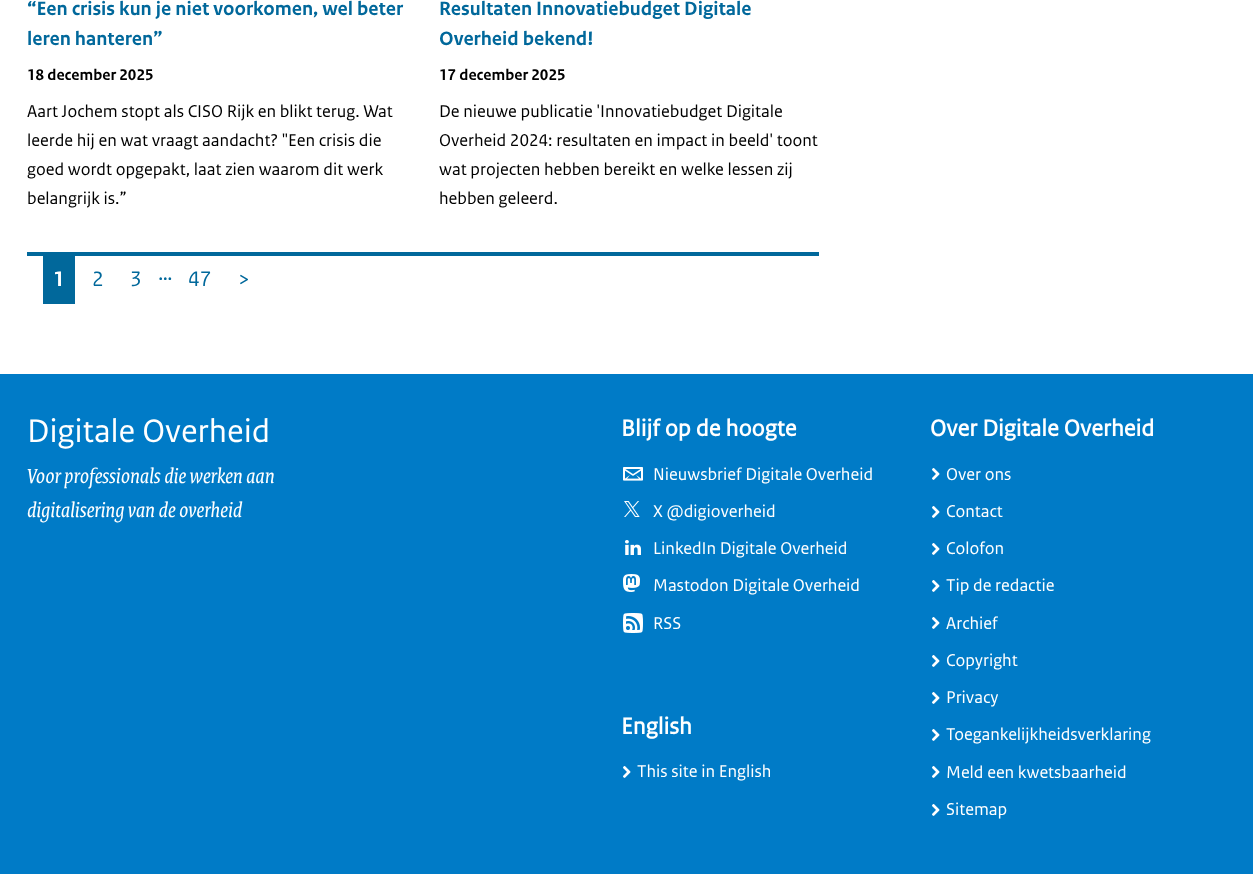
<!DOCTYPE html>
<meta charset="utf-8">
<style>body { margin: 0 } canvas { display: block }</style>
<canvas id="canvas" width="1253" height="874"></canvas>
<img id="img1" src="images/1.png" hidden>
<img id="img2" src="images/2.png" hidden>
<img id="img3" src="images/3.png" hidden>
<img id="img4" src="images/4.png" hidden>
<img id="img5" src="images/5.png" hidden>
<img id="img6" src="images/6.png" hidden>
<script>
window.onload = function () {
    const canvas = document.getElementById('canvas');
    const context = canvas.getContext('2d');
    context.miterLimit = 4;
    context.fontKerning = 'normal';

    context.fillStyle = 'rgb(255, 255, 255)';
    context.fillRect(0, 0, 1253, 874);
    context.fillStyle = 'rgb(1, 104, 155)';
    context.fillRect(27, 252, 792, 4);
    context.fillRect(43, 256, 32, 48);
    context.fillStyle = 'rgb(0, 123, 199)';
    context.fillRect(0, 374, 1253, 500);
    context.drawImage(document.getElementById('img1'), 623, 467, 20, 14);
    context.drawImage(document.getElementById('img2'), 624, 501, 16, 16);
    context.drawImage(document.getElementById('img3'), 625, 540, 16, 15);
    context.drawImage(document.getElementById('img4'), 623, 574, 17, 18);
    context.drawImage(document.getElementById('img5'), 623, 613, 20, 20);
    context.drawImage(document.getElementById('img6'), 623, 766, 8, 12);
    context.drawImage(document.getElementById('img6'), 932, 468, 8, 12);
    context.drawImage(document.getElementById('img6'), 932, 506, 8, 12);
    context.drawImage(document.getElementById('img6'), 932, 543, 8, 12);
    context.drawImage(document.getElementById('img6'), 932, 580, 8, 12);
    context.drawImage(document.getElementById('img6'), 932, 617, 8, 12);
    context.drawImage(document.getElementById('img6'), 932, 655, 8, 12);
    context.drawImage(document.getElementById('img6'), 932, 692, 8, 12);
    context.drawImage(document.getElementById('img6'), 932, 729, 8, 12);
    context.drawImage(document.getElementById('img6'), 932, 766, 8, 12);
    context.drawImage(document.getElementById('img6'), 932, 804, 8, 12);
    context.font = 'bold 20.25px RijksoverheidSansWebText';
    context.fillStyle = 'rgb(1, 104, 155)';
    context.fillText('“Een crisis kun je niet voorkomen, wel beter', 27, 15);
    context.fillText('leren hanteren”', 27, 45);
    context.font = 'bold 16.25px RijksoverheidSansWebText';
    context.fillStyle = 'rgb(0, 0, 0)';
    context.fillText('18 december 2025', 27, 80);
    context.font = '18px RijksoverheidSansWebText';
    context.fillText('Aart Jochem stopt als CISO Rijk en blikt terug. Wat', 27, 117);
    context.fillText('leerde hij en wat vraagt aandacht? "Een crisis die', 27, 146);
    context.fillText('goed wordt opgepakt, laat zien waarom dit werk', 27, 175);
    context.fillText('belangrijk is.”', 27, 204);
    context.font = 'bold 20.25px RijksoverheidSansWebText';
    context.fillStyle = 'rgb(1, 104, 155)';
    context.fillText('Resultaten Innovatiebudget Digitale', 439, 15);
    context.fillText('Overheid bekend!', 439, 45);
    context.font = 'bold 16.25px RijksoverheidSansWebText';
    context.fillStyle = 'rgb(0, 0, 0)';
    context.fillText('17 december 2025', 439, 80);
    context.font = '18px RijksoverheidSansWebText';
    context.fillText('De nieuwe publicatie \'Innovatiebudget Digitale', 439, 117);
    context.fillText('Overheid 2024: resultaten en impact in beeld\' toont', 439, 146);
    context.fillText('wat projecten hebben bereikt en welke lessen zij', 439, 175);
    context.fillText('hebben geleerd.', 439, 204);
    context.font = 'bold 22px RijksoverheidSansWebText';
    context.fillStyle = 'rgb(255, 255, 255)';
    context.fillText('1', 53, 286);
    context.font = '22px RijksoverheidSansWebText';
    context.fillStyle = 'rgb(1, 104, 155)';
    context.fillText('2', 92, 286);
    context.fillText('3', 130, 286);
    context.fillText('…', 158, 280);
    context.fillText('47', 188, 286);
    context.fillText('>', 238, 286);
    context.font = '34.25px RijksoverheidSansWebText';
    context.fillStyle = 'rgb(255, 255, 255)';
    context.fillText('Digitale Overheid', 27, 442);
    context.font = 'italic 21.75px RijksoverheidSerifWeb';
    context.fillText('Voor professionals die werken aan', 27, 483);
    context.fillText('digitalisering van de overheid', 27, 517);
    context.font = 'bold 24.25px "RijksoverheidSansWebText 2"';
    context.fillText('Blijf op de hoogte', 621, 436);
    context.font = '18px RijksoverheidSansWebText';
    context.fillText('Nieuwsbrief Digitale Overheid', 653, 480);
    context.fillText('X @digioverheid', 653, 517);
    context.fillText('LinkedIn Digitale Overheid', 653, 554);
    context.fillText('Mastodon Digitale Overheid', 653, 591);
    context.fillText('RSS', 653, 629);
    context.font = 'bold 24.25px "RijksoverheidSansWebText 2"';
    context.fillText('English', 621, 734);
    context.font = '18px RijksoverheidSansWebText';
    context.fillText('This site in English', 637, 777);
    context.font = 'bold 24.25px "RijksoverheidSansWebText 2"';
    context.fillText('Over Digitale Overheid', 930, 436);
    context.font = '18px RijksoverheidSansWebText';
    context.fillText('Over ons', 946, 480);
    context.fillText('Contact', 946, 517);
    context.fillText('Colofon', 946, 554);
    context.fillText('Tip de redactie', 946, 591);
    context.fillText('Archief', 946, 629);
    context.fillText('Copyright', 946, 666);
    context.fillText('Privacy', 946, 703);
    context.fillText('Toegankelijkheidsverklaring', 946, 740);
    context.fillText('Meld een kwetsbaarheid', 946, 778);
    context.fillText('Sitemap', 946, 815);
};
</script>
